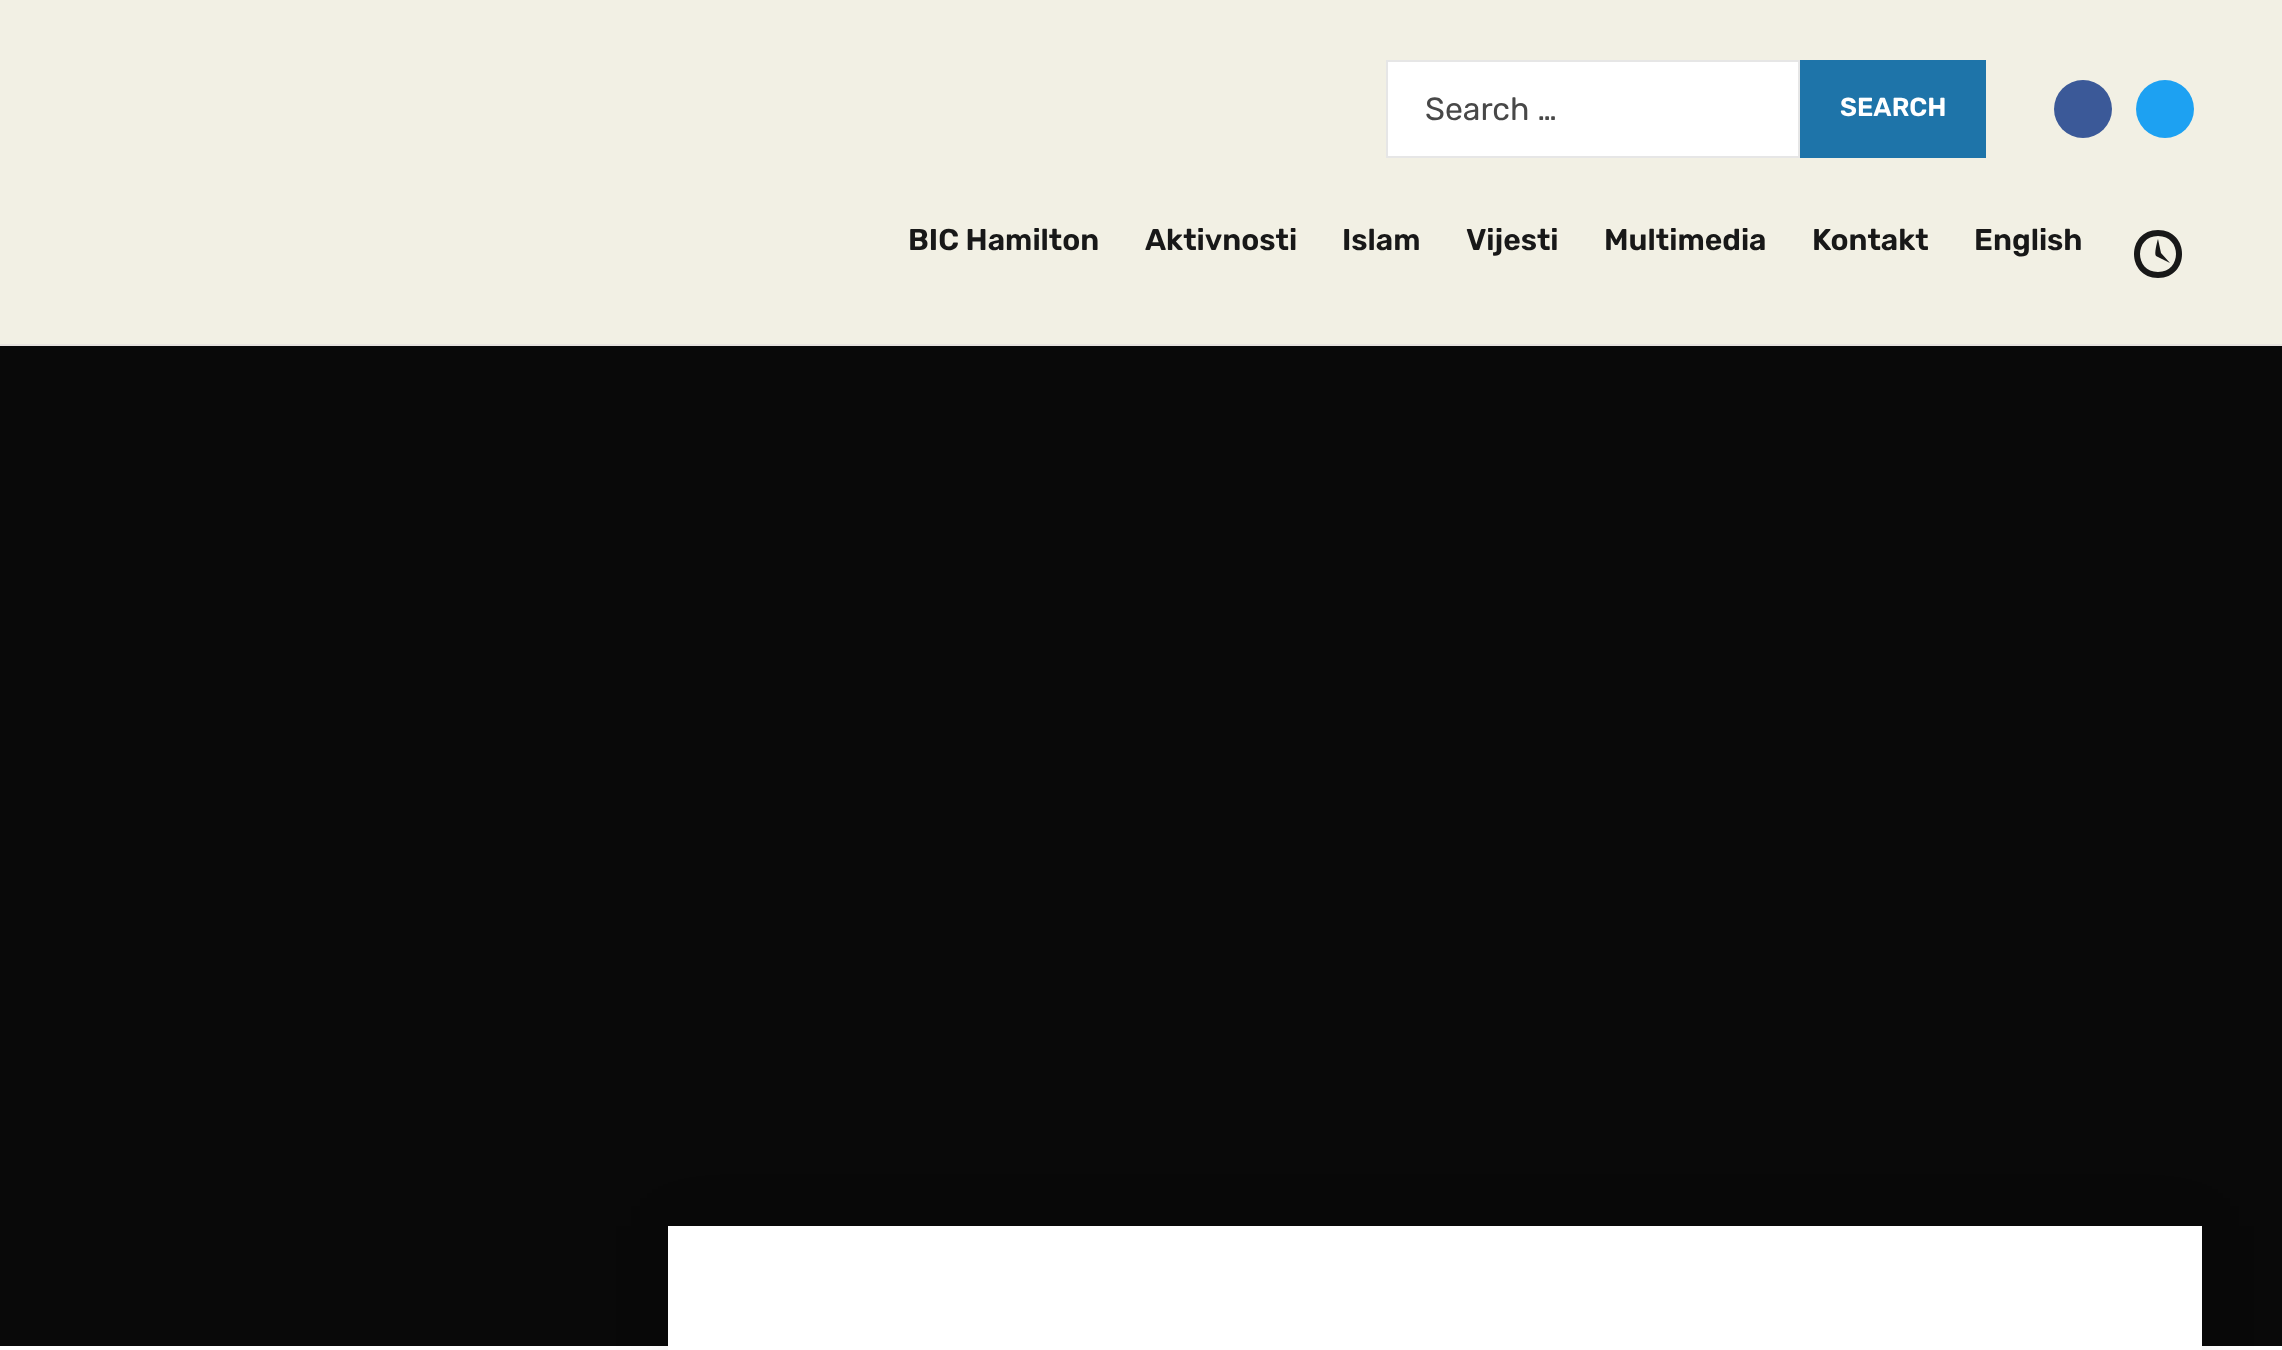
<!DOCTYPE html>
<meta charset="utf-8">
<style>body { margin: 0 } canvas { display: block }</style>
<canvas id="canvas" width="2282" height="1350"></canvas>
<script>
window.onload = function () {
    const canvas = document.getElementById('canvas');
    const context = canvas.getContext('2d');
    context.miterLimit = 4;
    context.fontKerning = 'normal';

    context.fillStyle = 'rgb(255, 255, 255)';
    context.fillRect(0, 0, 2282, 1350);
    context.fillStyle = 'rgb(242, 240, 228)';
    context.fillRect(0, 0, 2282, 344);
    context.fillStyle = 'rgb(231, 227, 224)';
    context.fillRect(0, 344, 2282, 2);
    context.fillStyle = 'rgb(255, 255, 255)';
    context.beginPath();
    context.rect(1387, 61, 412, 96);
    context.fill();
    context.strokeStyle = 'rgb(230, 230, 230)';
    context.lineWidth = 2;
    context.stroke();
    context.fillStyle = 'rgb(30, 116, 169)';
    context.fillRect(1800, 60, 186, 98);
    context.fillStyle = 'rgb(59, 89, 152)';
    context.beginPath();
    context.arc(2083, 109, 29, 0, 2 * Math.PI);
    context.fill();
    context.fillStyle = 'rgb(29, 161, 242)';
    context.beginPath();
    context.arc(2165, 109, 29, 0, 2 * Math.PI);
    context.fill();
    context.fillStyle = 'rgb(24, 24, 24)';
    context.beginPath();
    context.moveTo(2158, 230);
    context.bezierCurveTo(2190, 230, 2190, 278, 2158, 278);
    context.bezierCurveTo(2126, 278, 2126, 230, 2158, 230);
    context.closePath();
    context.moveTo(2158, 272);
    context.bezierCurveTo(2182, 272, 2182, 236, 2158, 236);
    context.bezierCurveTo(2134, 236, 2134, 272, 2158, 272);
    context.closePath();
    context.moveTo(2156, 256);
    context.lineTo(2170, 263);
    context.lineTo(2161, 253);
    context.lineTo(2158, 239);
    context.bezierCurveTo(2157, 242, 2154, 254, 2156, 256);
    context.closePath();
    context.fill();
    context.fillStyle = 'rgb(9, 9, 9)';
    context.fillRect(0, 346, 2282, 1000);
    context.fillStyle = 'rgba(0, 0, 0, 0.06)';
    context.filter = 'blur(30px)';
    context.beginPath();
    context.rect(668, 1226, 1534, 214);
    context.fill();
    context.filter = 'none';
    context.fillStyle = 'rgb(255, 255, 255)';
    context.fillRect(668, 1226, 1534, 124);
    context.font = '32px Rubik';
    context.fillStyle = 'rgb(72, 72, 72)';
    context.fillText('Search …', 1425, 120);
    context.font = '600 26px Rubik';
    context.fillStyle = 'rgb(255, 255, 255)';
    context.fillText('SEARCH', 1840, 116);
    context.font = '600 30px Rubik';
    context.fillStyle = 'rgb(24, 24, 24)';
    context.fillText('BIC Hamilton', 908, 250);
    context.fillText('Aktivnosti', 1145, 250);
    context.fillText('Islam', 1342, 250);
    context.fillText('Vijesti', 1466, 250);
    context.fillText('Multimedia', 1604, 250);
    context.fillText('Kontakt', 1812, 250);
    context.fillText('English', 1974, 250);
};
</script>
